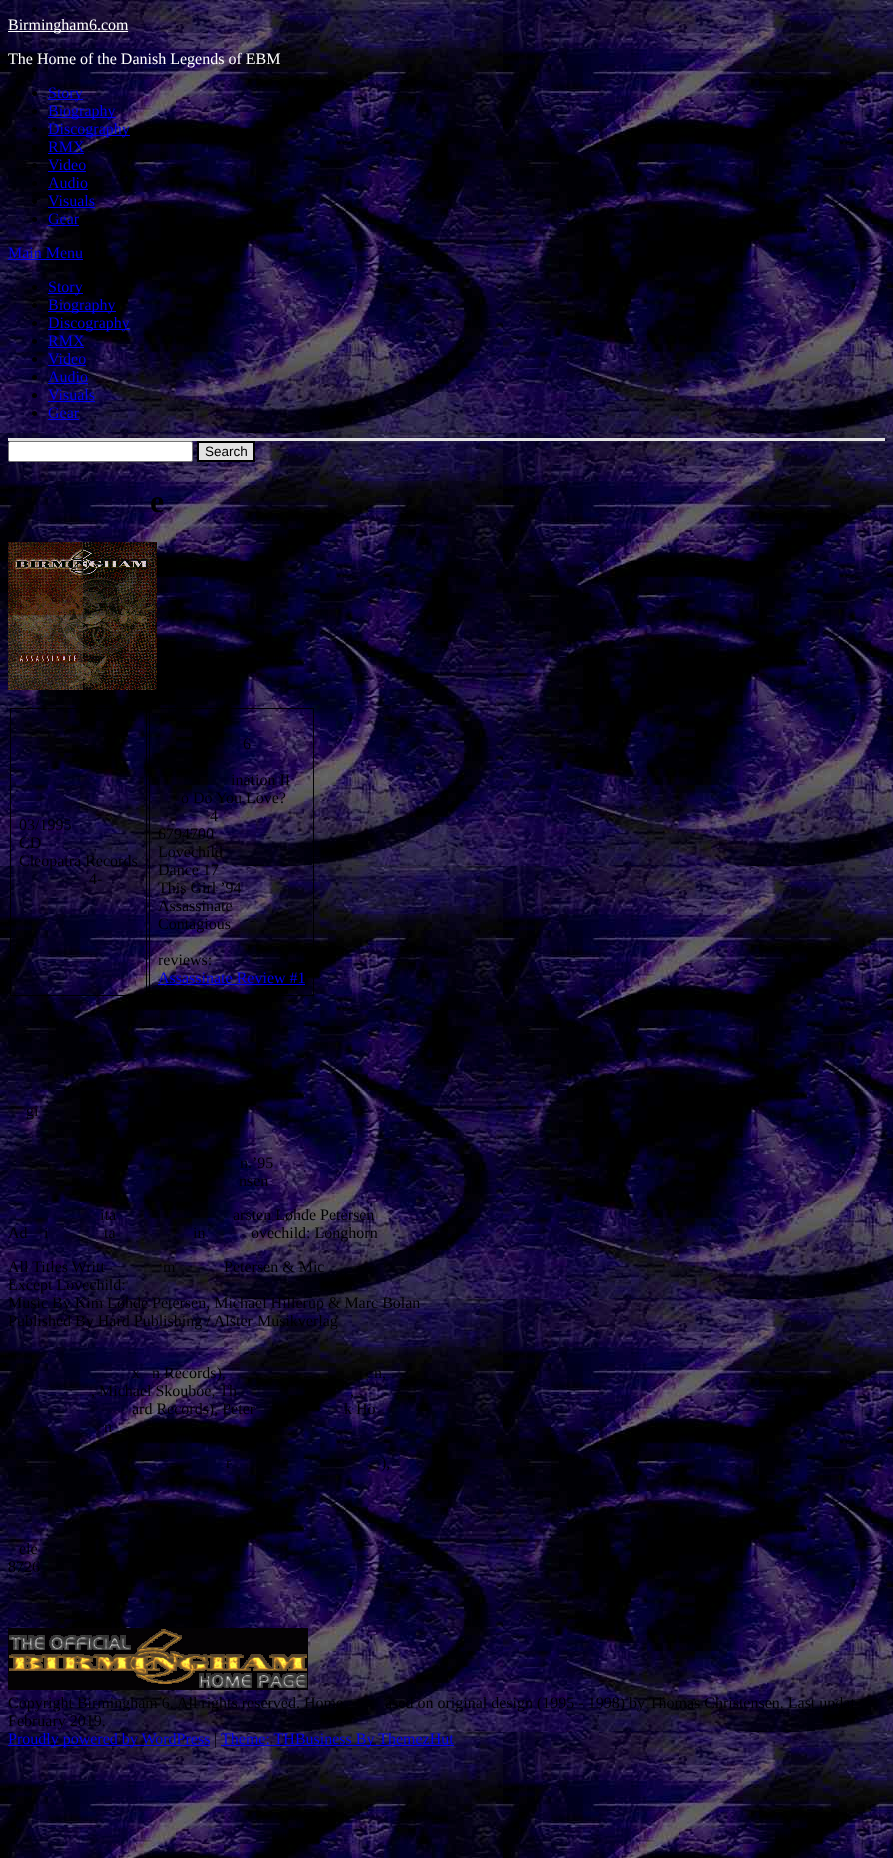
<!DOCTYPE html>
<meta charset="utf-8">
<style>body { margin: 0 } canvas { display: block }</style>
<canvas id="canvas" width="893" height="1858"></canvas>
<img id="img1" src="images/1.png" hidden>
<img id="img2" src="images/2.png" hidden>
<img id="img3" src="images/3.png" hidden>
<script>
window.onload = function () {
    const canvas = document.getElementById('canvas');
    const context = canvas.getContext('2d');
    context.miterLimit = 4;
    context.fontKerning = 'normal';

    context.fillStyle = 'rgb(255, 255, 255)';
    context.fillRect(0, 0, 893, 1858);
    context.drawImage(document.getElementById('img1'), 0, 0, 893, 1858);
    context.fillRect(8, 31, 120, 1);
    context.fillStyle = 'rgb(0, 0, 0)';
    context.beginPath();
    context.arc(34.5, 93.5, 2.5, 0, 2 * Math.PI);
    context.fill();
    context.fillStyle = 'rgb(0, 0, 238)';
    context.fillRect(48, 99, 35, 1);
    context.fillStyle = 'rgb(0, 0, 0)';
    context.beginPath();
    context.arc(34.5, 111.5, 2.5, 0, 2 * Math.PI);
    context.fill();
    context.fillStyle = 'rgb(0, 0, 238)';
    context.fillRect(48, 117, 68, 1);
    context.fillStyle = 'rgb(0, 0, 0)';
    context.beginPath();
    context.arc(34.5, 129.5, 2.5, 0, 2 * Math.PI);
    context.fill();
    context.fillStyle = 'rgb(0, 0, 238)';
    context.fillRect(48, 135, 82, 1);
    context.fillStyle = 'rgb(0, 0, 0)';
    context.beginPath();
    context.arc(34.5, 147.5, 2.5, 0, 2 * Math.PI);
    context.fill();
    context.fillStyle = 'rgb(0, 0, 238)';
    context.fillRect(48, 153, 36, 1);
    context.fillStyle = 'rgb(0, 0, 0)';
    context.beginPath();
    context.arc(34.5, 165.5, 2.5, 0, 2 * Math.PI);
    context.fill();
    context.fillStyle = 'rgb(0, 0, 238)';
    context.fillRect(48, 171, 38, 1);
    context.fillStyle = 'rgb(0, 0, 0)';
    context.beginPath();
    context.arc(34.5, 183.5, 2.5, 0, 2 * Math.PI);
    context.fill();
    context.fillStyle = 'rgb(0, 0, 238)';
    context.fillRect(48, 189, 40, 1);
    context.fillStyle = 'rgb(0, 0, 0)';
    context.beginPath();
    context.arc(34.5, 201.5, 2.5, 0, 2 * Math.PI);
    context.fill();
    context.fillStyle = 'rgb(0, 0, 238)';
    context.fillRect(48, 207, 47, 1);
    context.fillStyle = 'rgb(0, 0, 0)';
    context.beginPath();
    context.arc(34.5, 219.5, 2.5, 0, 2 * Math.PI);
    context.fill();
    context.fillStyle = 'rgb(0, 0, 238)';
    context.fillRect(48, 225, 31, 1);
    context.fillRect(8, 259, 75, 1);
    context.fillStyle = 'rgb(0, 0, 0)';
    context.beginPath();
    context.arc(34.5, 287.5, 2.5, 0, 2 * Math.PI);
    context.fill();
    context.fillStyle = 'rgb(0, 0, 238)';
    context.fillRect(48, 293, 35, 1);
    context.fillStyle = 'rgb(0, 0, 0)';
    context.beginPath();
    context.arc(34.5, 305.5, 2.5, 0, 2 * Math.PI);
    context.fill();
    context.fillStyle = 'rgb(0, 0, 238)';
    context.fillRect(48, 311, 68, 1);
    context.fillStyle = 'rgb(0, 0, 0)';
    context.beginPath();
    context.arc(34.5, 323.5, 2.5, 0, 2 * Math.PI);
    context.fill();
    context.fillStyle = 'rgb(0, 0, 238)';
    context.fillRect(48, 329, 82, 1);
    context.fillStyle = 'rgb(0, 0, 0)';
    context.beginPath();
    context.arc(34.5, 341.5, 2.5, 0, 2 * Math.PI);
    context.fill();
    context.fillStyle = 'rgb(0, 0, 238)';
    context.fillRect(48, 347, 36, 1);
    context.fillStyle = 'rgb(0, 0, 0)';
    context.beginPath();
    context.arc(34.5, 359.5, 2.5, 0, 2 * Math.PI);
    context.fill();
    context.fillStyle = 'rgb(0, 0, 238)';
    context.fillRect(48, 365, 38, 1);
    context.fillStyle = 'rgb(0, 0, 0)';
    context.beginPath();
    context.arc(34.5, 377.5, 2.5, 0, 2 * Math.PI);
    context.fill();
    context.fillStyle = 'rgb(0, 0, 238)';
    context.fillRect(48, 383, 40, 1);
    context.fillStyle = 'rgb(0, 0, 0)';
    context.beginPath();
    context.arc(34.5, 395.5, 2.5, 0, 2 * Math.PI);
    context.fill();
    context.fillStyle = 'rgb(0, 0, 238)';
    context.fillRect(48, 401, 47, 1);
    context.fillStyle = 'rgb(0, 0, 0)';
    context.beginPath();
    context.arc(34.5, 413.5, 2.5, 0, 2 * Math.PI);
    context.fill();
    context.fillStyle = 'rgb(0, 0, 238)';
    context.fillRect(48, 419, 31, 1);
    context.fillStyle = 'rgb(226, 226, 226)';
    context.fillRect(8, 438, 877, 3);
    context.fillStyle = 'rgb(255, 255, 255)';
    context.beginPath();
    context.roundRect(8.5, 441.5, 184, 20, 1.5);
    context.fill();
    context.strokeStyle = 'rgb(118, 118, 118)';
    context.stroke();
    context.fillStyle = 'rgb(226, 226, 226)';
    context.beginPath();
    context.rect(198, 442, 56, 19);
    context.fill();
    context.strokeStyle = 'rgb(0, 0, 0)';
    context.lineWidth = 2;
    context.stroke();
    context.drawImage(document.getElementById('img2'), 8, 542, 149, 148);
    context.lineWidth = 1;
    context.strokeRect(10.5, 708.5, 136, 287);
    context.strokeRect(149.5, 708.5, 164, 287);
    context.fillStyle = 'rgb(0, 0, 238)';
    context.fillRect(158, 984, 147, 1);
    context.drawImage(document.getElementById('img3'), 8, 1628, 300, 62);
    context.fillRect(8, 1745, 202, 1);
    context.fillRect(221, 1745, 233, 1);
    context.font = '16px Liberation Serif';
    context.fillStyle = 'rgb(255, 255, 255)';
    context.fillText('Birmingham6.com', 8, 30);
    context.fillText('The Home of the Danish Legends of EBM', 8, 64);
    context.fillStyle = 'rgb(0, 0, 238)';
    context.fillText('Story', 48, 98);
    context.fillText('Biography', 48, 116);
    context.fillText('Discography', 48, 134);
    context.fillText('RMX', 48, 152);
    context.fillText('Video', 48, 170);
    context.fillText('Audio', 48, 188);
    context.fillText('Visuals', 48, 206);
    context.fillText('Gear', 48, 224);
    context.fillText('Main Menu', 8, 258);
    context.fillText('Story', 48, 292);
    context.fillText('Biography', 48, 310);
    context.fillText('Discography', 48, 328);
    context.fillText('RMX', 48, 346);
    context.fillText('Video', 48, 364);
    context.fillText('Audio', 48, 382);
    context.fillText('Visuals', 48, 400);
    context.fillText('Gear', 48, 418);
    context.font = '13.5px Liberation Sans';
    context.fillStyle = 'rgb(0, 0, 0)';
    context.fillText('Search', 205, 456);
    context.font = 'bold 32px Liberation Serif';
    context.fillText('e', 150, 512);
    context.font = '16px Liberation Serif';
    context.fillText('03/1995', 19, 830);
    context.fillText('CD', 19, 848);
    context.fillText('Cleopatra Records', 19, 866);
    context.fillText('4-', 89, 884);
    context.fillText('6', 243, 749);
    context.fillText('ination II', 231, 785);
    context.fillText('o Do You Love?', 181, 803);
    context.fillText('4', 210, 821);
    context.fillText('6794700', 158, 839);
    context.fillText('Lovechild', 158, 857);
    context.fillText('Dance 17', 158, 875);
    context.fillText('This Girl ’94', 158, 893);
    context.fillText('Assassinate', 158, 911);
    context.fillText('Contagious', 158, 929);
    context.fillText('reviews:', 158, 965);
    context.fillStyle = 'rgb(0, 0, 238)';
    context.fillText('Assassinate Review #1', 158, 983);
    context.fillStyle = 'rgb(0, 0, 0)';
    context.fillText('gi', 26, 1116);
    context.fillText('n.’95', 240, 1168);
    context.fillText('nsen', 239, 1186);
    context.fillText('ita', 100, 1220);
    context.fillText('arsten Løhde Petersen', 233, 1220);
    context.fillText('Ad', 8, 1238);
    context.fillText('i', 44, 1238);
    context.fillText('ta', 104, 1238);
    context.fillText('in', 193, 1238);
    context.fillText('ovechild: Longhorn', 251, 1238);
    context.fillText('All Titles Writt', 8, 1272);
    context.fillText('m', 163, 1272);
    context.fillText('Petersen & Mic', 224, 1272);
    context.fillText('Except Lovechild:', 8, 1290);
    context.fillText('Music By Kim Løhde Petersen, Michael Hillerup & Marc Bolan', 8, 1308);
    context.fillText('Published By Hard Publishing / Alster Musikverlag', 8, 1326);
    context.fillText('x', 132, 1378);
    context.fillText('n Records),', 152, 1378);
    context.fillText('n,', 374, 1378);
    context.fillText(', Michael Skouboe, Th', 91, 1396);
    context.fillText(',', 350, 1396);
    context.fillText('ard Records), Peter', 132, 1414);
    context.fillText('k Ho', 344, 1414);
    context.fillText('n', 104, 1432);
    context.fillText('r', 226, 1468);
    context.fillText('),', 381, 1468);
    context.fillText('ele', 19, 1554);
    context.fillText('8726', 8, 1572);
    context.fillText('Copyright Birmingham 6. All rights reserved. Home', 8, 1708);
    context.fillText('ased on original design (1995 - 1998) by Thomas Christensen. Last updat', 385, 1708);
    context.fillText('February 2019.', 8, 1726);
    context.fillStyle = 'rgb(0, 0, 238)';
    context.fillText('Proudly powered by WordPress', 8, 1744);
    context.fillStyle = 'rgb(0, 0, 0)';
    context.fillText('|', 214, 1744);
    context.fillStyle = 'rgb(0, 0, 238)';
    context.fillText('Theme: THBusiness By ThemezHut', 221, 1744);
};
</script>
